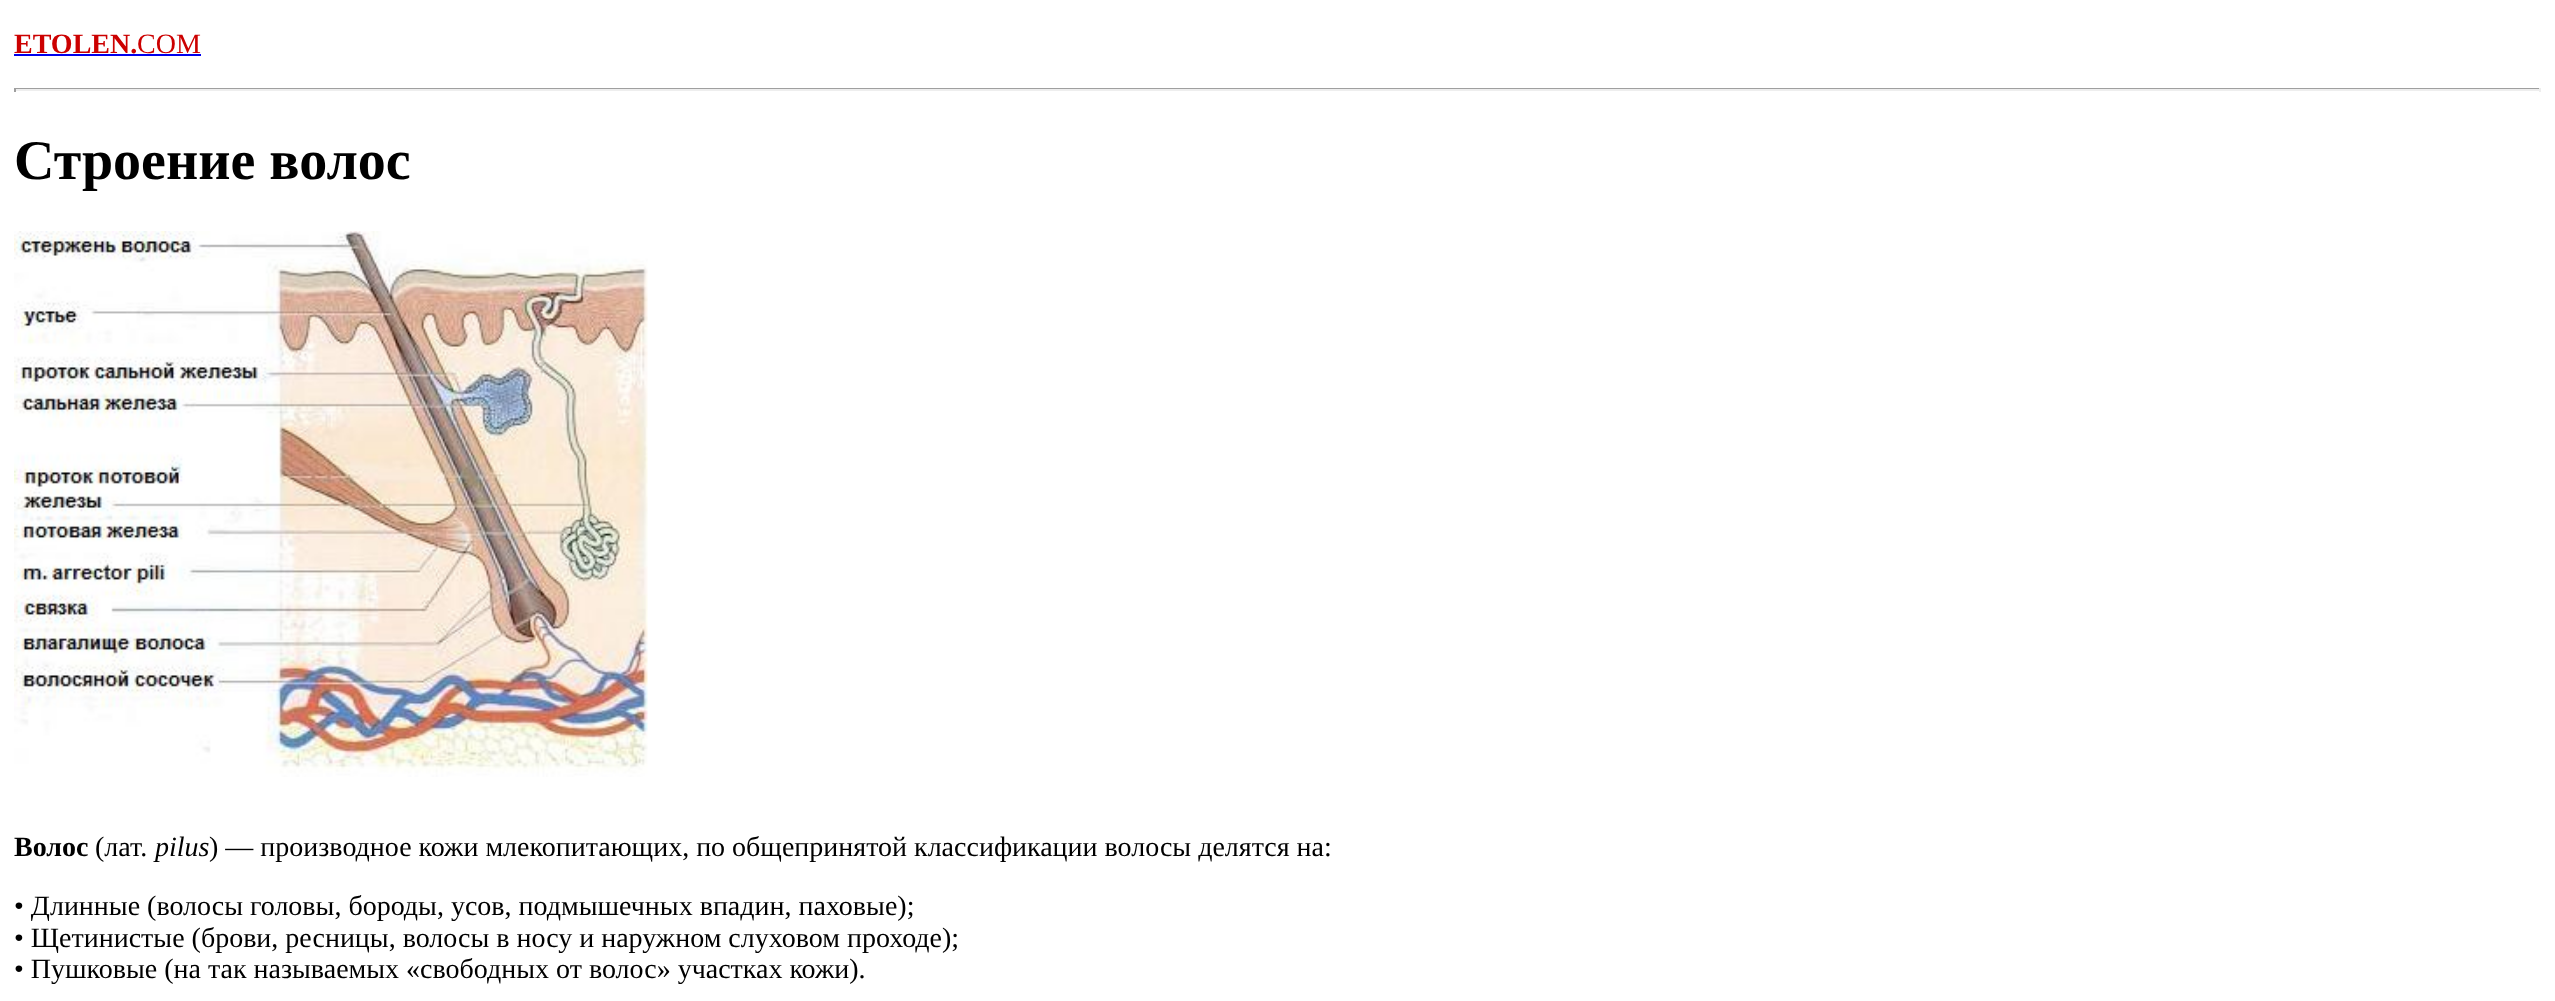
<!DOCTYPE html>
<meta charset="utf-8">
<style>body { margin: 0 } canvas { display: block }</style>
<canvas id="canvas" width="2555" height="1001"></canvas>
<img id="img1" src="images/1.png" hidden>
<script>
window.onload = function () {
    const canvas = document.getElementById('canvas');
    const context = canvas.getContext('2d');
    context.miterLimit = 4;
    context.fontKerning = 'normal';

    context.fillStyle = 'rgb(255, 255, 255)';
    context.fillRect(0, 0, 2555, 1001);
    context.fillStyle = 'rgb(0, 0, 238)';
    context.fillRect(14, 54, 187, 2);
    context.fillStyle = 'rgb(159, 159, 159)';
    context.fillRect(14, 88, 2527, 1);
    context.fillStyle = 'rgb(238, 238, 238)';
    context.fillRect(2539, 88, 2, 4);
    context.fillRect(14, 89, 2527, 2);
    context.fillStyle = 'rgb(159, 159, 159)';
    context.fillRect(14, 88, 2, 4);
    context.drawImage(document.getElementById('img1'), 14, 231, 634, 546);
    context.font = 'bold 28px Liberation Serif';
    context.fillStyle = 'rgb(204, 0, 0)';
    context.fillText('ETOLEN.', 14, 53);
    context.font = '28px Liberation Serif';
    context.fillText('COM', 137, 53);
    context.font = 'bold 56px Liberation Serif';
    context.fillStyle = 'rgb(0, 0, 0)';
    context.fillText('Строение волос', 14, 179);
    context.font = 'bold 28px Liberation Serif';
    context.fillText('Волос', 14, 856);
    context.font = '28px Liberation Serif';
    context.fillText('(лат.', 95, 856);
    context.font = 'italic 28px Liberation Serif';
    context.fillText('pilus', 155, 856);
    context.font = '28px Liberation Serif';
    context.fillText(') — производное кожи млекопитающих, по общепринятой классификации волосы делятся на:', 209, 856);
    context.fillText('• Длинные (волосы головы, бороды, усов, подмышечных впадин, паховые);', 14, 915);
    context.fillText('• Щетинистые (брови, ресницы, волосы в носу и наружном слуховом проходе);', 14, 947);
    context.fillText('• Пушковые (на так называемых «свободных от волос» участках кожи).', 14, 978);
};
</script>
